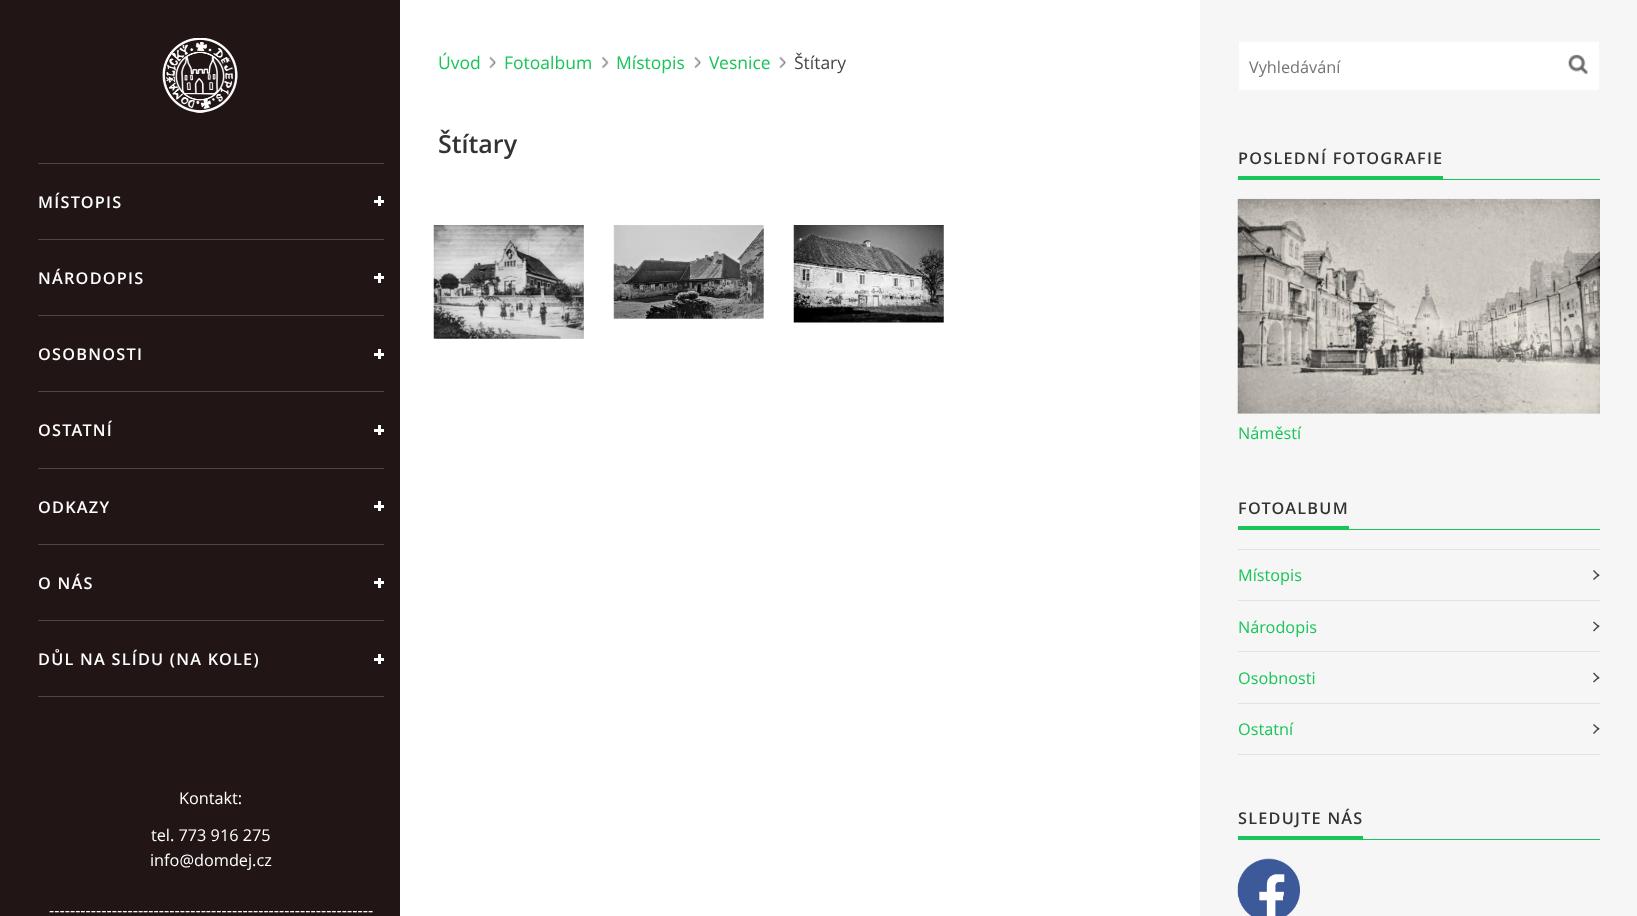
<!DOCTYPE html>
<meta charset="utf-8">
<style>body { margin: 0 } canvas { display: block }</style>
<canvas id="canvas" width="1637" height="916"></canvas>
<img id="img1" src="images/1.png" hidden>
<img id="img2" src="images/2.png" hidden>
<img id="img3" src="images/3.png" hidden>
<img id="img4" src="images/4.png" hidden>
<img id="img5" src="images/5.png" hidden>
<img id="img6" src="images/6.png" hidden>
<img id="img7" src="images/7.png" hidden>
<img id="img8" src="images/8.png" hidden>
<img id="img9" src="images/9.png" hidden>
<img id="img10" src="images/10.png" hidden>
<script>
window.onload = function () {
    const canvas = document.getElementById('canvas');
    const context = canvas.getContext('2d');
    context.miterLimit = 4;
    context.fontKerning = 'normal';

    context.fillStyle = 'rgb(255, 255, 255)';
    context.fillRect(0, 0, 1637, 916);
    context.fillStyle = 'rgb(33, 21, 21)';
    context.fillRect(0, 0, 400, 916);
    context.drawImage(document.getElementById('img1'), 162, 38, 76, 75);
    context.fillStyle = 'rgb(77, 68, 68)';
    context.fillRect(38, 163, 346, 1);
    context.fillStyle = 'rgb(255, 255, 255)';
    context.fillRect(374, 200, 10, 3);
    context.fillRect(378, 196, 3, 10);
    context.fillStyle = 'rgb(77, 68, 68)';
    context.fillRect(38, 239, 346, 1);
    context.fillStyle = 'rgb(255, 255, 255)';
    context.fillRect(374, 276, 10, 3);
    context.fillRect(378, 273, 3, 10);
    context.fillStyle = 'rgb(77, 68, 68)';
    context.fillRect(38, 315, 346, 1);
    context.fillStyle = 'rgb(255, 255, 255)';
    context.fillRect(374, 353, 10, 3);
    context.fillRect(378, 349, 3, 10);
    context.fillStyle = 'rgb(77, 68, 68)';
    context.fillRect(38, 391, 346, 1);
    context.fillStyle = 'rgb(255, 255, 255)';
    context.fillRect(374, 429, 10, 3);
    context.fillRect(378, 425, 3, 10);
    context.fillStyle = 'rgb(77, 68, 68)';
    context.fillRect(38, 468, 346, 1);
    context.fillStyle = 'rgb(255, 255, 255)';
    context.fillRect(374, 505, 10, 3);
    context.fillRect(378, 501, 3, 10);
    context.fillStyle = 'rgb(77, 68, 68)';
    context.fillRect(38, 544, 346, 1);
    context.fillStyle = 'rgb(255, 255, 255)';
    context.fillRect(374, 581, 10, 3);
    context.fillRect(378, 578, 3, 10);
    context.fillStyle = 'rgb(77, 68, 68)';
    context.fillRect(38, 620, 346, 1);
    context.fillRect(38, 696, 346, 1);
    context.fillStyle = 'rgb(255, 255, 255)';
    context.fillRect(374, 658, 10, 3);
    context.fillRect(378, 654, 3, 10);
    context.drawImage(document.getElementById('img2'), 489, 56, 8, 13);
    context.drawImage(document.getElementById('img3'), 601, 56, 8, 13);
    context.drawImage(document.getElementById('img4'), 694, 56, 8, 13);
    context.drawImage(document.getElementById('img4'), 779, 56, 8, 13);
    context.drawImage(document.getElementById('img5'), 433, 225, 151, 114);
    context.drawImage(document.getElementById('img6'), 613, 225, 151, 94);
    context.drawImage(document.getElementById('img7'), 793, 225, 151, 98);
    context.fillStyle = 'rgb(246, 246, 246)';
    context.fillRect(1200, 0, 437, 916);
    context.fillStyle = 'rgb(255, 255, 255)';
    context.fillRect(1239, 42, 360, 48);
    context.drawImage(document.getElementById('img8'), 1568, 54, 20, 20);
    context.fillStyle = 'rgb(25, 197, 89)';
    context.fillRect(1238, 176, 205, 3);
    context.fillRect(1238, 179, 362, 1);
    context.drawImage(document.getElementById('img9'), 1237, 198, 363, 216);
    context.fillRect(1238, 526, 111, 3);
    context.fillRect(1238, 529, 362, 1);
    context.fillStyle = 'rgb(232, 223, 223)';
    context.fillRect(1238, 549, 362, 1);
    context.fillRect(1238, 600, 362, 1);
    context.fillStyle = 'rgb(72, 72, 72)';
    context.beginPath();
    context.moveTo(1594, 570);
    context.lineTo(1599.5, 575.5);
    context.lineTo(1598.5, 576.5);
    context.lineTo(1593, 571);
    context.closePath();
    context.fill();
    context.beginPath();
    context.moveTo(1593, 579);
    context.lineTo(1598.5, 574);
    context.lineTo(1599.5, 575);
    context.lineTo(1594, 580);
    context.closePath();
    context.fill();
    context.fillStyle = 'rgb(232, 223, 223)';
    context.fillRect(1238, 651, 362, 1);
    context.fillStyle = 'rgb(72, 72, 72)';
    context.beginPath();
    context.moveTo(1594, 621.5);
    context.lineTo(1599.5, 626.5);
    context.lineTo(1598.5, 627.5);
    context.lineTo(1593, 622.5);
    context.closePath();
    context.fill();
    context.beginPath();
    context.moveTo(1593, 630.5);
    context.lineTo(1598.5, 625);
    context.lineTo(1599.5, 626);
    context.lineTo(1594, 631.5);
    context.closePath();
    context.fill();
    context.fillStyle = 'rgb(232, 223, 223)';
    context.fillRect(1238, 703, 362, 1);
    context.fillStyle = 'rgb(72, 72, 72)';
    context.beginPath();
    context.moveTo(1594, 672.5);
    context.lineTo(1599.5, 678);
    context.lineTo(1598.5, 679);
    context.lineTo(1593, 673.5);
    context.closePath();
    context.fill();
    context.beginPath();
    context.moveTo(1593, 681.5);
    context.lineTo(1598.5, 676.5);
    context.lineTo(1599.5, 677.5);
    context.lineTo(1594, 682.5);
    context.closePath();
    context.fill();
    context.fillStyle = 'rgb(232, 223, 223)';
    context.fillRect(1238, 754, 362, 1);
    context.fillStyle = 'rgb(72, 72, 72)';
    context.beginPath();
    context.moveTo(1594, 724);
    context.lineTo(1599.5, 729);
    context.lineTo(1598.5, 730);
    context.lineTo(1593, 725);
    context.closePath();
    context.fill();
    context.beginPath();
    context.moveTo(1593, 733);
    context.lineTo(1598.5, 727.5);
    context.lineTo(1599.5, 728.5);
    context.lineTo(1594, 734);
    context.closePath();
    context.fill();
    context.fillStyle = 'rgb(25, 197, 89)';
    context.fillRect(1238, 836, 125, 3);
    context.fillRect(1238, 839, 362, 1);
    context.drawImage(document.getElementById('img10'), 1237, 858, 63, 58);
    context.letterSpacing = '1.25px';
    context.font = '600 16.25px Open Sans';
    context.fillStyle = 'rgb(255, 255, 255)';
    context.fillText('MÍSTOPIS', 38, 208);
    context.fillText('NÁRODOPIS', 38, 284);
    context.fillText('OSOBNOSTI', 38, 360);
    context.fillText('OSTATNÍ', 38, 436);
    context.fillText('ODKAZY', 38, 513);
    context.fillText('O NÁS', 38, 589);
    context.fillText('DŮL NA SLÍDU (NA KOLE)', 38, 665);
    context.letterSpacing = '0px';
    context.font = '16.25px Open Sans';
    context.fillText('Kontakt:', 179, 804);
    context.fillText('tel. 773 916 275', 151, 841);
    context.fillText('info@domdej.cz', 150, 866);
    context.fillText('--------------------------------------------------------------', 49, 916);
    context.font = '17.5px Open Sans';
    context.fillStyle = 'rgb(25, 197, 89)';
    context.fillText('Úvod', 438, 69);
    context.fillText('Fotoalbum', 504, 69);
    context.fillText('Místopis', 616, 69);
    context.fillText('Vesnice', 709, 69);
    context.fillStyle = 'rgb(72, 72, 72)';
    context.fillText('Štítary', 794, 69);
    context.font = '600 25px Open Sans';
    context.fillStyle = 'rgb(51, 51, 51)';
    context.fillText('Štítary', 438, 153);
    context.font = '16.25px Open Sans';
    context.fillStyle = 'rgb(117, 117, 117)';
    context.fillText('Vyhledávání', 1249, 73);
    context.letterSpacing = '1.25px';
    context.font = '600 16.25px Open Sans';
    context.fillStyle = 'rgb(51, 51, 51)';
    context.fillText('POSLEDNÍ FOTOGRAFIE', 1238, 164);
    context.letterSpacing = '0px';
    context.font = '16.25px Open Sans';
    context.fillStyle = 'rgb(25, 197, 89)';
    context.fillText('Náměstí', 1238, 439);
    context.letterSpacing = '1.25px';
    context.font = '600 16.25px Open Sans';
    context.fillStyle = 'rgb(51, 51, 51)';
    context.fillText('FOTOALBUM', 1238, 514);
    context.letterSpacing = '0px';
    context.font = '16.25px Open Sans';
    context.fillStyle = 'rgb(25, 197, 89)';
    context.fillText('Místopis', 1238, 581);
    context.fillText('Národopis', 1238, 633);
    context.fillText('Osobnosti', 1238, 684);
    context.fillText('Ostatní', 1238, 735);
    context.letterSpacing = '1.25px';
    context.font = '600 16.25px Open Sans';
    context.fillStyle = 'rgb(51, 51, 51)';
    context.fillText('SLEDUJTE NÁS', 1238, 824);
};
</script>
